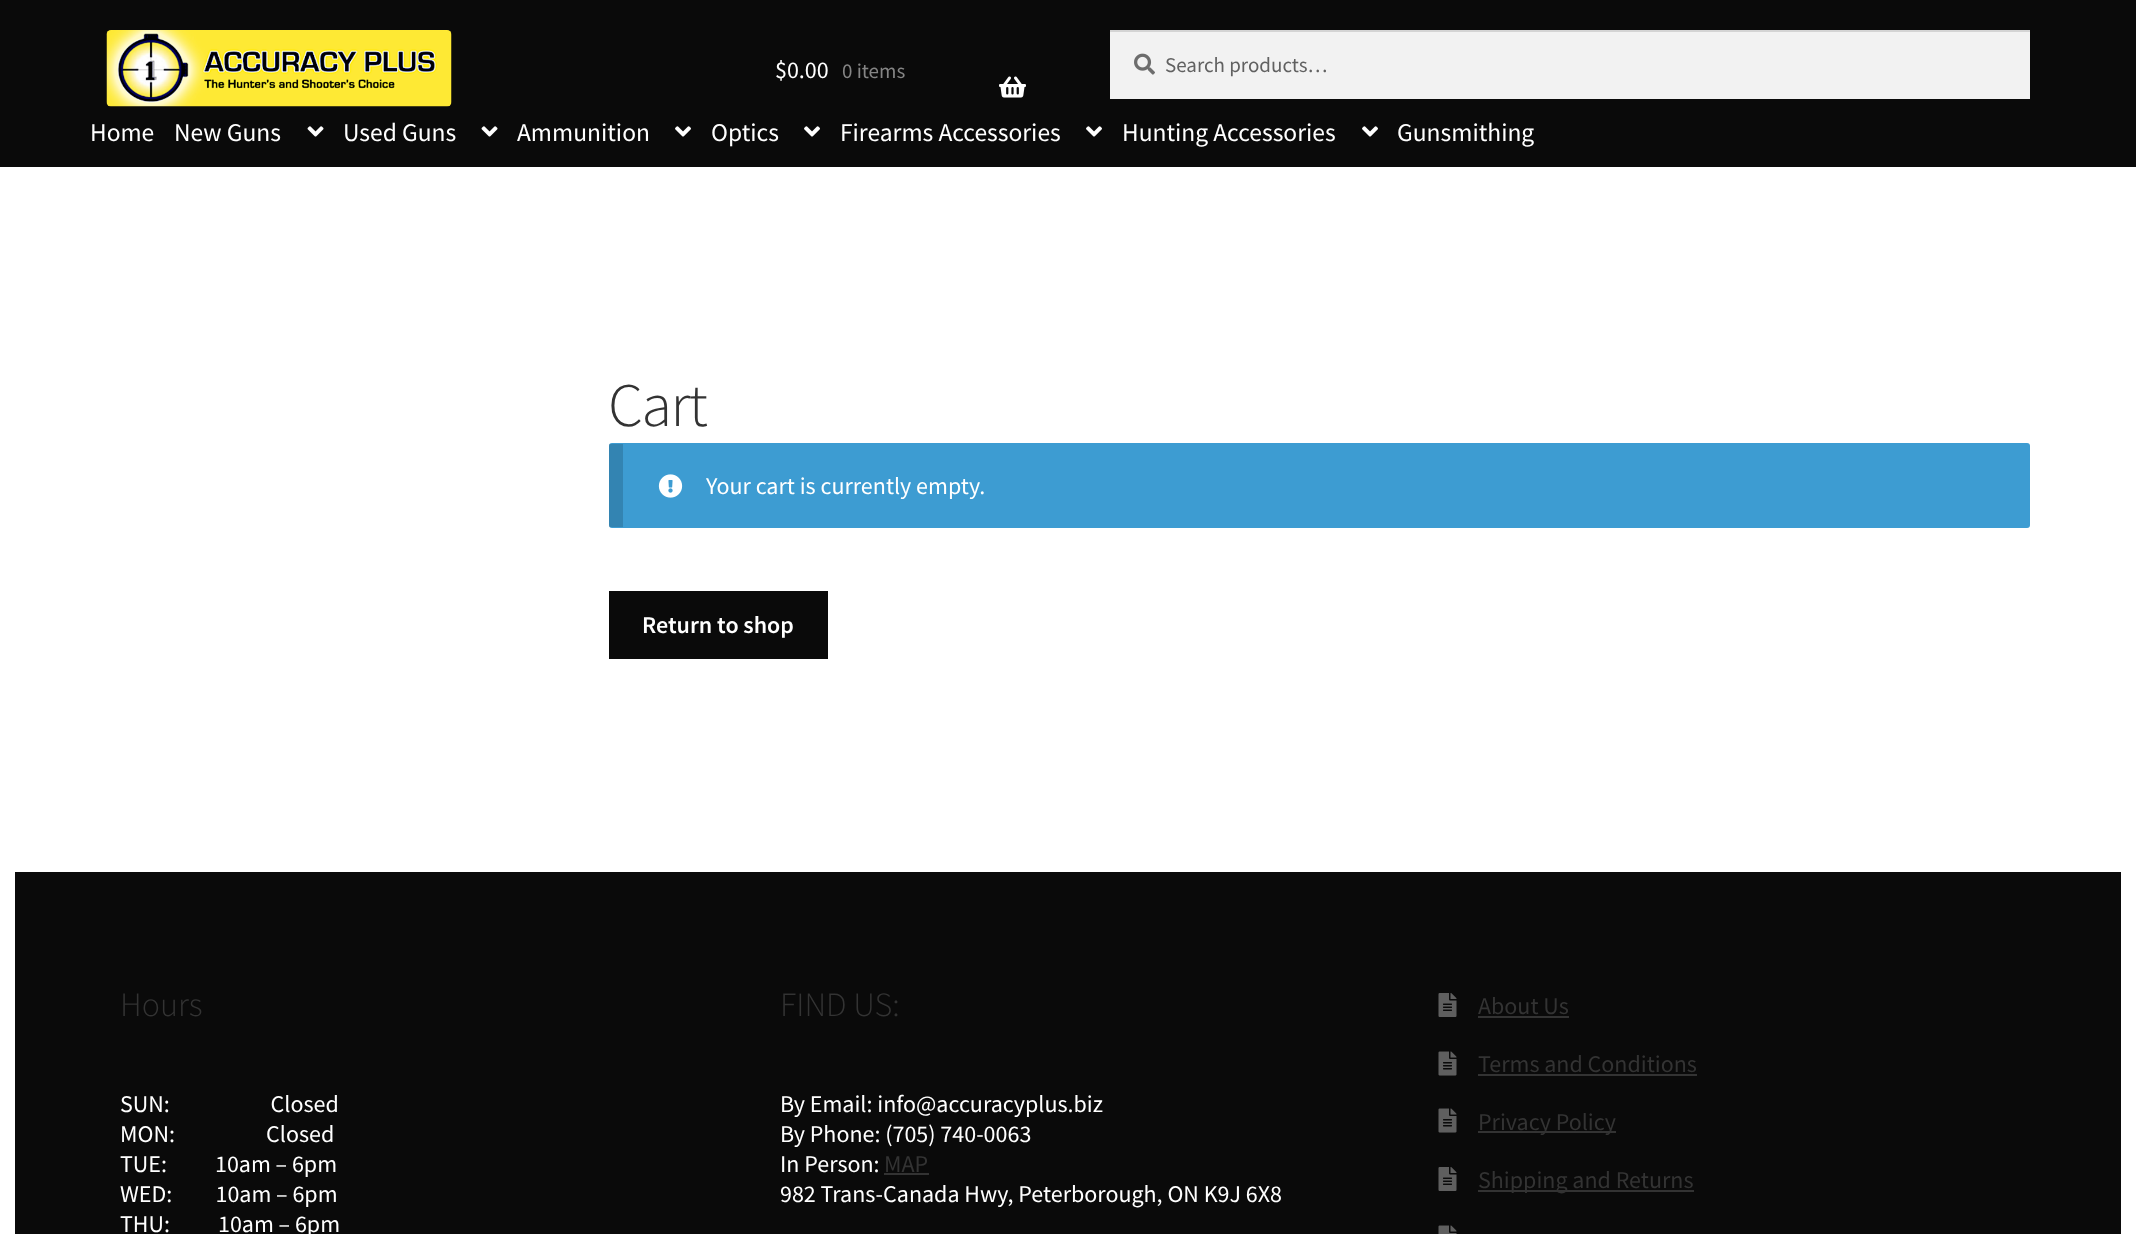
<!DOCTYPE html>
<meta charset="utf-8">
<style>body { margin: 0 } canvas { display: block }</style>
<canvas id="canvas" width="2136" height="1234"></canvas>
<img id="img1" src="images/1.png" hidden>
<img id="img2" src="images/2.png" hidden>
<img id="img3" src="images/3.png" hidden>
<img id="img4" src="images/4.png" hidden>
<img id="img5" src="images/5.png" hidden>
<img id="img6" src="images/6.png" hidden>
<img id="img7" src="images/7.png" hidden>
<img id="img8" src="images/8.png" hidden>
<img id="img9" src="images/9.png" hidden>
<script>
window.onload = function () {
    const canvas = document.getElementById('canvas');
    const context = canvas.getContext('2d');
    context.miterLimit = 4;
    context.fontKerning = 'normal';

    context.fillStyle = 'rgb(255, 255, 255)';
    context.fillRect(0, 0, 2136, 1234);
    context.fillStyle = 'rgb(10, 10, 10)';
    context.fillRect(0, 0, 2136, 167);
    context.drawImage(document.getElementById('img1'), 106, 30, 346, 77);
    context.drawImage(document.getElementById('img2'), 999, 76, 27, 22);
    context.fillStyle = 'rgb(242, 242, 242)';
    context.fillRect(1110, 32, 920, 67);
    context.drawImage(document.getElementById('img3'), 1134, 53, 21, 22);
    context.fillStyle = 'rgb(212, 212, 212)';
    context.fillRect(1110, 30, 920, 2);
    context.drawImage(document.getElementById('img4'), 307, 126, 17, 11);
    context.drawImage(document.getElementById('img4'), 481, 126, 17, 11);
    context.drawImage(document.getElementById('img5'), 675, 126, 16, 11);
    context.drawImage(document.getElementById('img5'), 804, 126, 16, 11);
    context.drawImage(document.getElementById('img5'), 1086, 126, 16, 11);
    context.drawImage(document.getElementById('img5'), 1362, 126, 16, 11);
    context.fillStyle = 'rgb(61, 156, 210)';
    context.beginPath();
    context.roundRect(609, 443, 1421, 85, 3);
    context.fill();
    context.fillStyle = 'rgba(0, 0, 0, 0.15)';
    context.fillRect(609, 444, 14, 83);
    context.drawImage(document.getElementById('img6'), 658, 474, 25, 24);
    context.fillStyle = 'rgb(10, 10, 10)';
    context.fillRect(609, 591, 219, 68);
    context.fillRect(15, 872, 2106, 362);
    context.fillStyle = 'rgb(51, 51, 51)';
    context.fillRect(884, 1173, 45, 2);
    context.drawImage(document.getElementById('img7'), 1438, 993, 19, 24);
    context.fillRect(1478, 1016, 91, 2);
    context.drawImage(document.getElementById('img8'), 1438, 1051, 19, 25);
    context.fillRect(1478, 1074, 219, 2);
    context.drawImage(document.getElementById('img8'), 1438, 1108, 19, 25);
    context.fillRect(1478, 1131, 138, 2);
    context.drawImage(document.getElementById('img7'), 1438, 1167, 19, 24);
    context.fillRect(1478, 1190, 216, 2);
    context.drawImage(document.getElementById('img9'), 1438, 1225, 19, 9);
    context.font = '24px Source Sans Pro';
    context.fillStyle = 'rgb(255, 255, 255)';
    context.fillText('$0.00', 775, 78);
    context.font = '21px Source Sans Pro';
    context.fillStyle = 'rgb(133, 133, 133)';
    context.fillText('0 items', 842, 78);
    context.fillStyle = 'rgb(97, 97, 97)';
    context.fillText('Search products…', 1165, 72);
    context.font = '25.5px Source Sans Pro';
    context.fillStyle = 'rgb(255, 255, 255)';
    context.fillText('Home', 90, 141);
    context.fillText('New Guns', 174, 141);
    context.fillText('Used Guns', 343, 141);
    context.fillText('Ammunition', 517, 141);
    context.fillText('Optics', 711, 141);
    context.fillText('Firearms Accessories', 840, 141);
    context.fillText('Hunting Accessories', 1122, 141);
    context.fillText('Gunsmithing', 1397, 141);
    context.letterSpacing = '-1.5px';
    context.font = '300 62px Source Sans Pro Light';
    context.fillStyle = 'rgb(51, 51, 51)';
    context.fillText('Cart', 608, 426);
    context.letterSpacing = '0px';
    context.font = '24px Source Sans Pro';
    context.fillStyle = 'rgb(255, 255, 255)';
    context.fillText('Your cart is currently empty.', 706, 494);
    context.font = '600 24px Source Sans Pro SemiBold';
    context.fillText('Return to shop', 642, 633);
    context.font = '300 34px Source Sans Pro Light';
    context.fillStyle = 'rgb(51, 51, 51)';
    context.fillText('Hours', 120, 1016);
    context.font = '24px Source Sans Pro';
    context.fillStyle = 'rgb(255, 255, 255)';
    context.fillText('SUN:                     Closed', 120, 1112);
    context.fillText('MON:                   Closed', 120, 1142);
    context.fillText('TUE:          10am – 6pm', 120, 1172);
    context.fillText('WED:         10am – 6pm', 120, 1202);
    context.fillText('THU:          10am – 6pm', 120, 1232);
    context.font = '300 34px Source Sans Pro Light';
    context.fillStyle = 'rgb(51, 51, 51)';
    context.fillText('FIND US:', 780, 1016);
    context.font = '24px Source Sans Pro';
    context.fillStyle = 'rgb(255, 255, 255)';
    context.fillText('By Email: info@accuracyplus.biz', 780, 1112);
    context.fillText('By Phone: (705) 740-0063', 780, 1142);
    context.fillText('In Person:', 780, 1172);
    context.fillStyle = 'rgb(51, 51, 51)';
    context.fillText('MAP', 884, 1172);
    context.fillStyle = 'rgb(255, 255, 255)';
    context.fillText('982 Trans-Canada Hwy, Peterborough, ON K9J 6X8', 780, 1202);
    context.fillStyle = 'rgb(51, 51, 51)';
    context.fillText('About Us', 1478, 1014);
    context.fillText('Terms and Conditions', 1478, 1072);
    context.fillText('Privacy Policy', 1478, 1130);
    context.fillText('Shipping and Returns', 1478, 1188);
};
</script>
